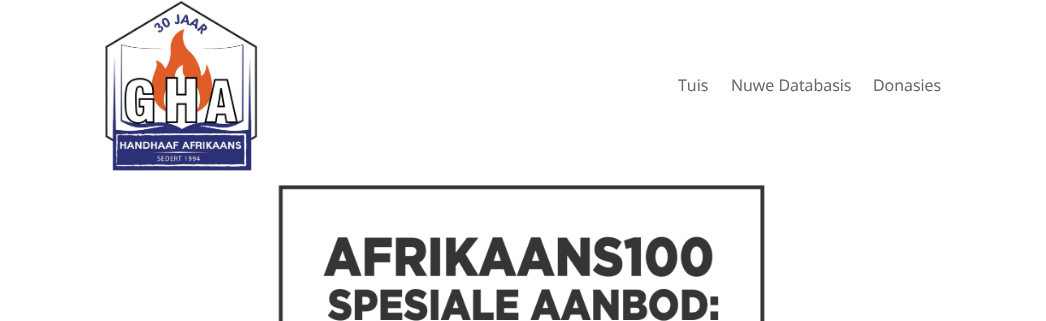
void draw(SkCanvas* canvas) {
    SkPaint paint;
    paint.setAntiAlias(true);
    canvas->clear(0xFFFFFFFF);
    canvas->drawImageRect(SkImages::DeferredFromEncodedData(SkData::MakeFromFileName("img1.png")), SkRect::MakeXYWH(105, 0, 153, 171), SkSamplingOptions());
    SkFont font1(fontMgr->matchFamilyStyle("Open Sans", SkFontStyle::Normal()), 16);
    font1.setSubpixel(true);
    paint.setColor(0xFF666666);
    canvas->drawString("Tuis", 678, 91, font1, paint);
    canvas->drawString("Nuwe Databasis", 731, 91, font1, paint);
    canvas->drawString("Donasies", 873, 91, font1, paint);
    canvas->drawImageRect(SkImages::DeferredFromEncodedData(SkData::MakeFromFileName("img2.png")), SkRect::MakeXYWH(278, 185, 487, 136), SkSamplingOptions());
}
